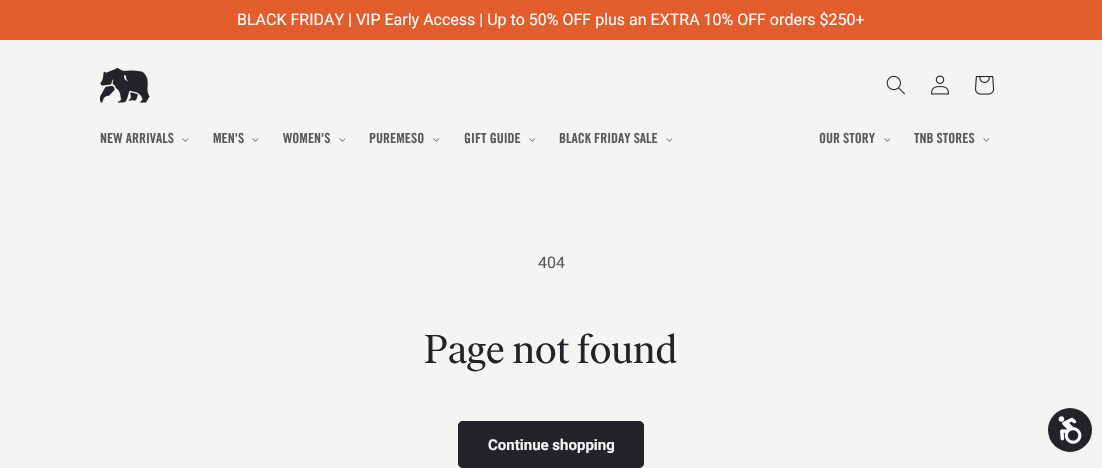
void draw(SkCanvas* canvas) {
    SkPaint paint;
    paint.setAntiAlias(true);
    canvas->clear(0xFFF6F4F2);
    paint.setColor(0xFFE35C2C);
    canvas->drawRect(SkRect::MakeXYWH(0, 0, 1102, 40), paint);
    SkFont font1(fontMgr->matchFamilyStyle("Roboto", SkFontStyle::Normal()), 16);
    font1.setSubpixel(true);
    paint.setColor(0xFFFFFFFF);
    canvas->drawString("BLACK FRIDAY | VIP Early Access | Up to 50% OFF plus an EXTRA 10% OFF orders $250+", 237, 25, font1, paint);
    canvas->drawImageRect(SkImages::DeferredFromEncodedData(SkData::MakeFromFileName("img1.png")), SkRect::MakeXYWH(100, 68, 50, 35), SkSamplingOptions());
    canvas->drawImageRect(SkImages::DeferredFromEncodedData(SkData::MakeFromFileName("img2.png")), SkRect::MakeXYWH(886, 75, 19, 20), SkSamplingOptions());
    canvas->drawImageRect(SkImages::DeferredFromEncodedData(SkData::MakeFromFileName("img3.png")), SkRect::MakeXYWH(931, 75, 18, 20), SkSamplingOptions());
    canvas->drawImageRect(SkImages::DeferredFromEncodedData(SkData::MakeFromFileName("img4.png")), SkRect::MakeXYWH(975, 76, 20, 19), SkSamplingOptions());
    SkFont font2(fontMgr->matchFamilyStyle("Trade Gothic", SkFontStyle::Bold()), 14);
    font2.setSubpixel(true);
    paint.setColor(0xFF57585C);
    canvas->drawString("NEW ARRIVALS", 100, 143, font2, paint);
    canvas->drawImageRect(SkImages::DeferredFromEncodedData(SkData::MakeFromFileName("img5.png")), SkRect::MakeXYWH(182, 138, 7, 4), SkSamplingOptions());
    canvas->drawString("MEN'S", 213, 143, font2, paint);
    canvas->drawImageRect(SkImages::DeferredFromEncodedData(SkData::MakeFromFileName("img5.png")), SkRect::MakeXYWH(252, 138, 7, 4), SkSamplingOptions());
    canvas->drawString("WOMEN'S", 283, 143, font2, paint);
    canvas->drawImageRect(SkImages::DeferredFromEncodedData(SkData::MakeFromFileName("img6.png")), SkRect::MakeXYWH(339, 138, 6, 4), SkSamplingOptions());
    canvas->drawString("PUREMESO", 369, 143, font2, paint);
    canvas->drawImageRect(SkImages::DeferredFromEncodedData(SkData::MakeFromFileName("img5.png")), SkRect::MakeXYWH(433, 138, 7, 4), SkSamplingOptions());
    canvas->drawString("GIFT GUIDE", 464, 143, font2, paint);
    canvas->drawImageRect(SkImages::DeferredFromEncodedData(SkData::MakeFromFileName("img6.png")), SkRect::MakeXYWH(529, 138, 6, 4), SkSamplingOptions());
    canvas->drawString("BLACK FRIDAY SALE", 559, 143, font2, paint);
    canvas->drawImageRect(SkImages::DeferredFromEncodedData(SkData::MakeFromFileName("img5.png")), SkRect::MakeXYWH(666, 138, 7, 4), SkSamplingOptions());
    canvas->drawString("OUR STORY", 819, 143, font2, paint);
    canvas->drawImageRect(SkImages::DeferredFromEncodedData(SkData::MakeFromFileName("img6.png")), SkRect::MakeXYWH(884, 138, 6, 4), SkSamplingOptions());
    canvas->drawString("TNB STORES", 914, 143, font2, paint);
    canvas->drawImageRect(SkImages::DeferredFromEncodedData(SkData::MakeFromFileName("img5.png")), SkRect::MakeXYWH(983, 138, 7, 4), SkSamplingOptions());
    canvas->drawString("404", 538, 268, font1, paint);
    SkFont font3(fontMgr->matchFamilyStyle("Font", SkFontStyle::Normal()), 40);
    font3.setSubpixel(true);
    paint.setColor(0xFF22242A);
    canvas->drawString("Page not found", 424, 363, font3, paint);
    canvas->drawRoundRect(SkRect::MakeXYWH(458, 421, 186, 47), 5, 5, paint);
    paint.setStyle(SkPaint::kStroke_Style);
    paint.setStrokeWidth(1);
    canvas->drawRoundRect(SkRect::MakeXYWH(458.5f, 421.5f, 185, 46), 4.5f, 4.5f, paint);
    SkFont font4(fontMgr->matchFamilyStyle("Roboto", SkFontStyle::Bold()), 15);
    font4.setSubpixel(true);
    paint.setStyle(SkPaint::kFill_Style);
    paint.setColor(0xFFF6F4F2);
    canvas->drawString("Continue shopping", 488, 450, font4, paint);
    paint.setColor(0xFF22242A);
    canvas->drawCircle(1070, 430, 22, paint);
    canvas->drawImageRect(SkImages::DeferredFromEncodedData(SkData::MakeFromFileName("img7.png")), SkRect::MakeXYWH(1058, 416, 24, 28), SkSamplingOptions());
}
